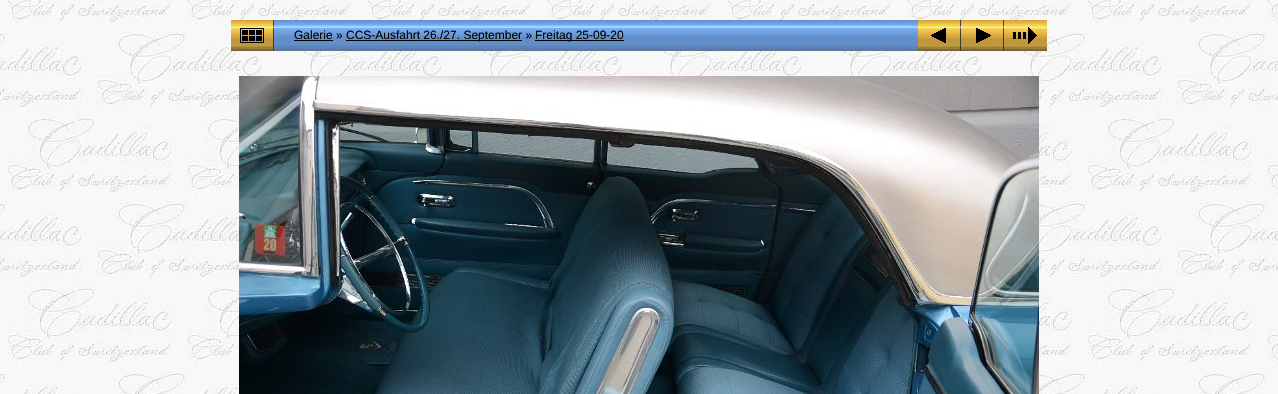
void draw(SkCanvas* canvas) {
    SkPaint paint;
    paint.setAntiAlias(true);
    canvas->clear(0xFFFFFFFF);
    canvas->drawImageRect(SkImages::DeferredFromEncodedData(SkData::MakeFromFileName("img1.png")), SkRect::MakeXYWH(0, 0, 1278, 394), SkSamplingOptions());
    canvas->drawImageRect(SkImages::DeferredFromEncodedData(SkData::MakeFromFileName("img2.png")), SkRect::MakeXYWH(231, 20, 43, 31), SkSamplingOptions());
    canvas->drawImageRect(SkImages::DeferredFromEncodedData(SkData::MakeFromFileName("img3.png")), SkRect::MakeXYWH(274, 20, 20, 31), SkSamplingOptions());
    canvas->drawImageRect(SkImages::DeferredFromEncodedData(SkData::MakeFromFileName("img4.png")), SkRect::MakeXYWH(294, 20, 604, 31), SkSamplingOptions());
    SkFont font1(fontMgr->matchFamilyStyle("Liberation Sans", SkFontStyle::Normal()), 12);
    font1.setSubpixel(true);
    paint.setColor(0xFF000000);
    canvas->drawString("Galerie »", 294, 39, font1, paint);
    canvas->drawRect(SkRect::MakeXYWH(294, 40, 39, 1), paint);
    canvas->drawRect(SkRect::MakeXYWH(346, 40, 176, 1), paint);
    canvas->drawString("CCS-Ausfahrt 26./27. September »", 346, 39, font1, paint);
    canvas->drawRect(SkRect::MakeXYWH(535, 40, 89, 1), paint);
    canvas->drawString("Freitag 25-09-20", 535, 39, font1, paint);
    canvas->drawImageRect(SkImages::DeferredFromEncodedData(SkData::MakeFromFileName("img3.png")), SkRect::MakeXYWH(898, 20, 20, 31), SkSamplingOptions());
    canvas->drawImageRect(SkImages::DeferredFromEncodedData(SkData::MakeFromFileName("img5.png")), SkRect::MakeXYWH(918, 20, 43, 31), SkSamplingOptions());
    canvas->drawImageRect(SkImages::DeferredFromEncodedData(SkData::MakeFromFileName("img6.png")), SkRect::MakeXYWH(961, 20, 43, 31), SkSamplingOptions());
    canvas->drawImageRect(SkImages::DeferredFromEncodedData(SkData::MakeFromFileName("img7.png")), SkRect::MakeXYWH(1004, 20, 43, 31), SkSamplingOptions());
    canvas->drawImageRect(SkImages::DeferredFromEncodedData(SkData::MakeFromFileName("img8.png")), SkRect::MakeXYWH(239, 76, 800, 318), SkSamplingOptions());
}
